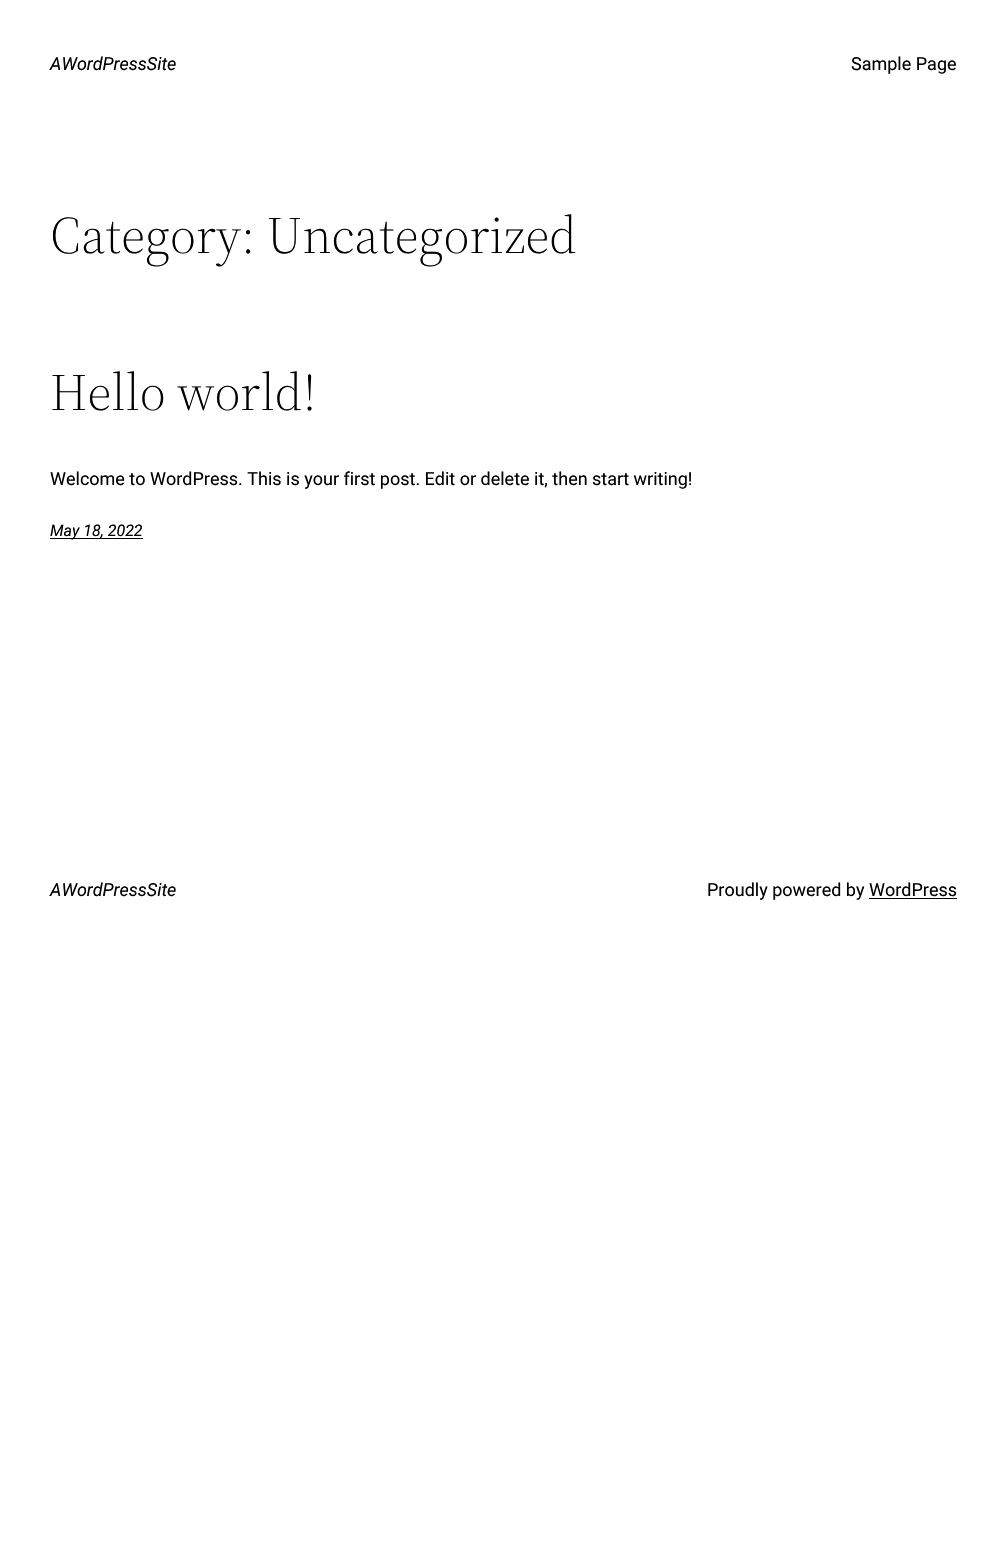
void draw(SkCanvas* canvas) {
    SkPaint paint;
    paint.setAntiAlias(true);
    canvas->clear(0xFFFFFFFF);
    SkFont font1(fontMgr->matchFamilyStyle("Roboto", SkFontStyle::Italic()), 18);
    font1.setSubpixel(true);
    paint.setColor(0xFF000000);
    canvas->drawString("AWordPressSite", 50, 70, font1, paint);
    SkFont font2(fontMgr->matchFamilyStyle("Roboto", SkFontStyle::Normal()), 18);
    font2.setSubpixel(true);
    canvas->drawString("Sample Page", 851, 70, font2, paint);
    SkFont font3(fontMgr->matchFamilyStyle("Source Serif 4", SkFontStyle(300, SkFontStyle::kNormal_Width, SkFontStyle::kUpright_Slant)), 52);
    font3.setSubpixel(true);
    canvas->drawString("Category: Uncategorized", 50, 253, font3, paint);
    canvas->drawString("Hello world!", 50, 410, font3, paint);
    canvas->drawString("Welcome to WordPress. This is your first post. Edit or delete it, then start writing!", 50, 485, font2, paint);
    canvas->drawRect(SkRect::MakeXYWH(50, 538, 93, 1), paint);
    SkFont font4(fontMgr->matchFamilyStyle("Roboto", SkFontStyle::Italic()), 16);
    font4.setSubpixel(true);
    canvas->drawString("May 18, 2022", 50, 536, font4, paint);
    canvas->drawString("AWordPressSite", 50, 896, font1, paint);
    canvas->drawString("Proudly powered by WordPress", 707, 896, font2, paint);
    canvas->drawRect(SkRect::MakeXYWH(869, 898, 88, 1), paint);
}
